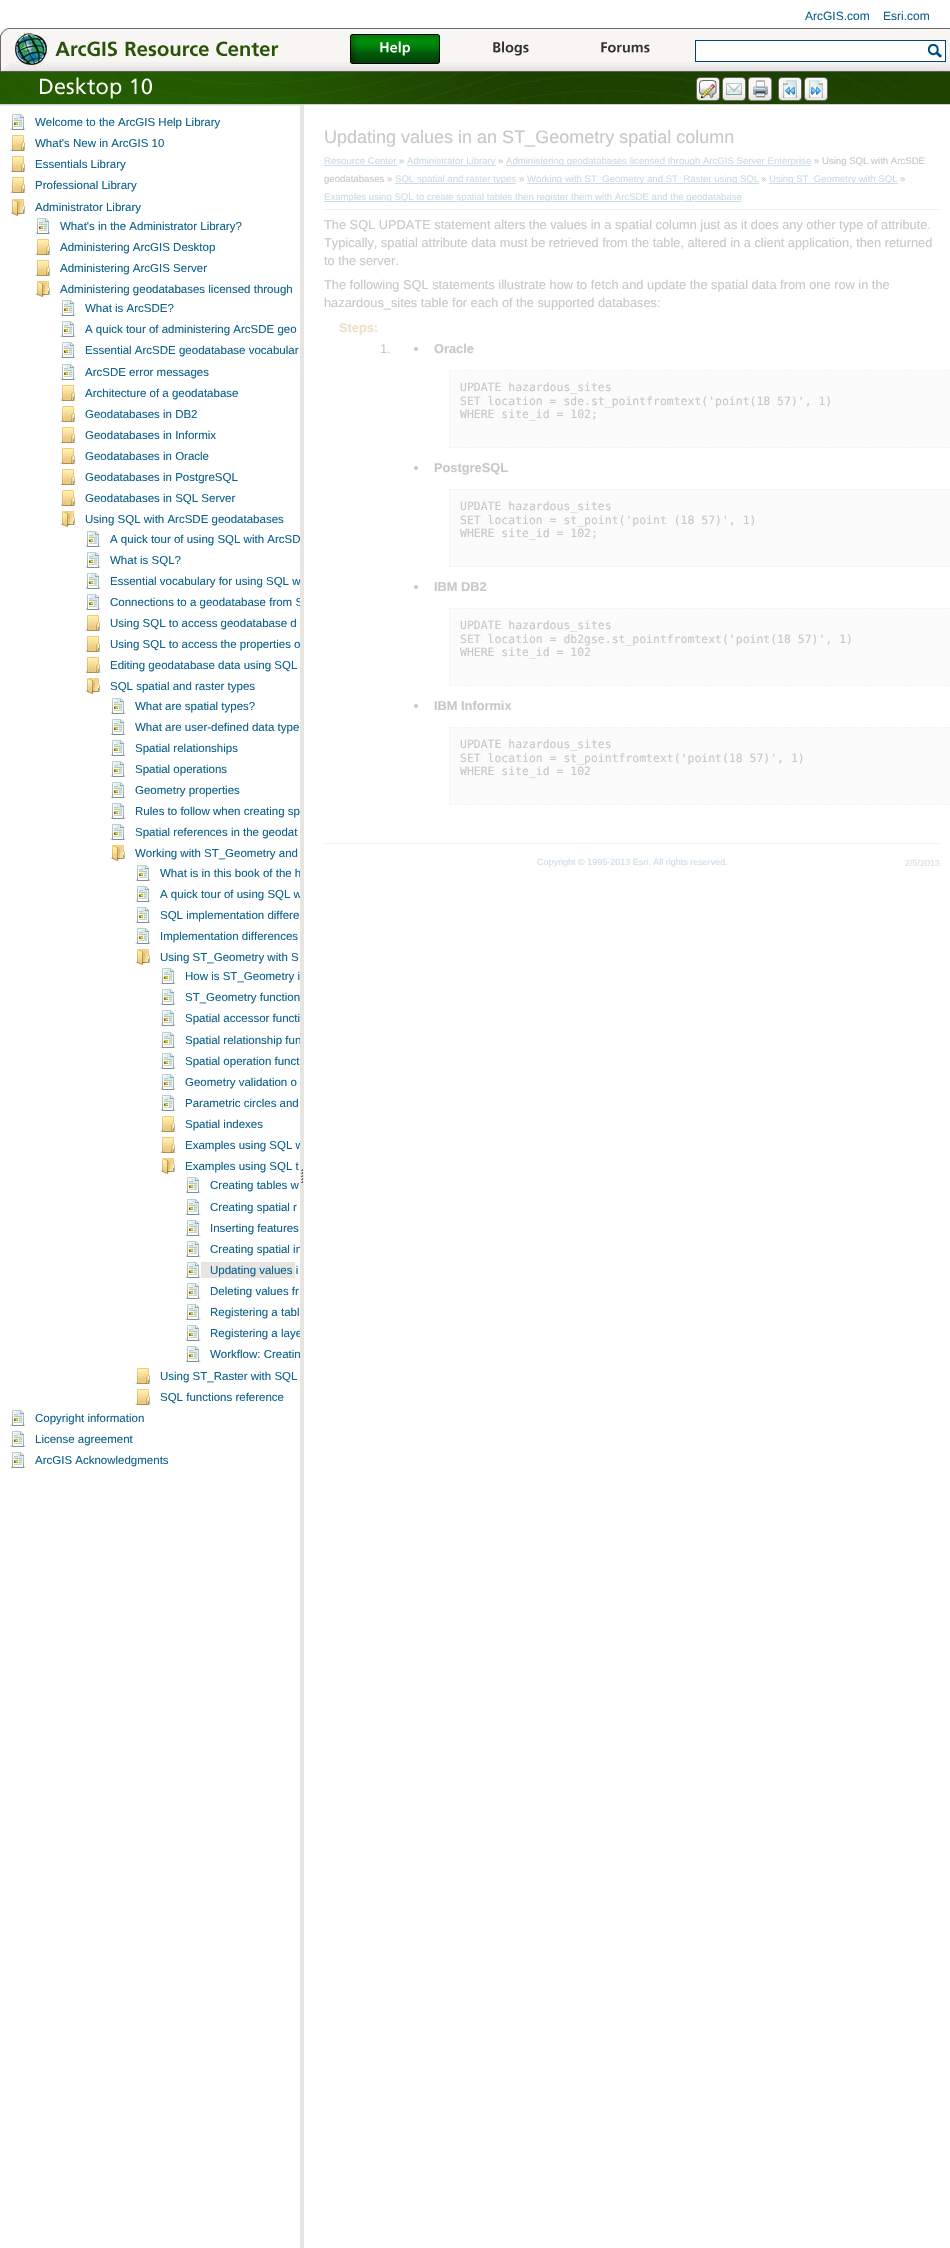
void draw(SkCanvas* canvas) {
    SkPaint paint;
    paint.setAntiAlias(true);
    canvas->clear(0xFFFFFFFF);
    canvas->drawImageRect(SkImages::DeferredFromEncodedData(SkData::MakeFromFileName("img1.png")), SkRect::MakeXYWH(52, 28, 898, 44), SkSamplingOptions());
    SkFont font1(fontMgr->matchFamilyStyle("Liberation Sans", SkFontStyle::Normal()), 12);
    font1.setSubpixel(true);
    paint.setColor(0xFF0C618D);
    canvas->drawString("ArcGIS.com", 805, 20, font1, paint);
    canvas->drawString("Esri.com", 883, 20, font1, paint);
    canvas->drawImageRect(SkImages::DeferredFromEncodedData(SkData::MakeFromFileName("img2.png")), SkRect::MakeXYWH(0, 28, 52, 44), SkSamplingOptions());
    canvas->drawImageRect(SkImages::DeferredFromEncodedData(SkData::MakeFromFileName("img3.png")), SkRect::MakeXYWH(55, 41, 63, 16), SkSamplingOptions());
    canvas->drawImageRect(SkImages::DeferredFromEncodedData(SkData::MakeFromFileName("img4.png")), SkRect::MakeXYWH(125, 41, 84, 16), SkSamplingOptions());
    canvas->drawImageRect(SkImages::DeferredFromEncodedData(SkData::MakeFromFileName("img5.png")), SkRect::MakeXYWH(216, 41, 63, 16), SkSamplingOptions());
    canvas->drawImageRect(SkImages::DeferredFromEncodedData(SkData::MakeFromFileName("img6.png")), SkRect::MakeXYWH(350, 34, 90, 30), SkSamplingOptions());
    canvas->drawImageRect(SkImages::DeferredFromEncodedData(SkData::MakeFromFileName("img7.png")), SkRect::MakeXYWH(380, 41, 31, 15), SkSamplingOptions());
    canvas->drawImageRect(SkImages::DeferredFromEncodedData(SkData::MakeFromFileName("img8.png")), SkRect::MakeXYWH(493, 41, 36, 15), SkSamplingOptions());
    canvas->drawImageRect(SkImages::DeferredFromEncodedData(SkData::MakeFromFileName("img9.png")), SkRect::MakeXYWH(601, 42, 49, 11), SkSamplingOptions());
    canvas->drawImageRect(SkImages::DeferredFromEncodedData(SkData::MakeFromFileName("img10.png")), SkRect::MakeXYWH(695, 36, 251, 30), SkSamplingOptions());
    canvas->drawImageRect(SkImages::DeferredFromEncodedData(SkData::MakeFromFileName("img11.png")), SkRect::MakeXYWH(0, 72, 950, 32), SkSamplingOptions());
    canvas->drawImageRect(SkImages::DeferredFromEncodedData(SkData::MakeFromFileName("img12.png")), SkRect::MakeXYWH(696, 77, 24, 24), SkSamplingOptions());
    canvas->drawImageRect(SkImages::DeferredFromEncodedData(SkData::MakeFromFileName("img13.png")), SkRect::MakeXYWH(722, 77, 24, 24), SkSamplingOptions());
    canvas->drawImageRect(SkImages::DeferredFromEncodedData(SkData::MakeFromFileName("img14.png")), SkRect::MakeXYWH(748, 77, 24, 24), SkSamplingOptions());
    canvas->drawImageRect(SkImages::DeferredFromEncodedData(SkData::MakeFromFileName("img15.png")), SkRect::MakeXYWH(778, 77, 24, 24), SkSamplingOptions());
    canvas->drawImageRect(SkImages::DeferredFromEncodedData(SkData::MakeFromFileName("img16.png")), SkRect::MakeXYWH(804, 77, 24, 24), SkSamplingOptions());
    paint.setColor(0xFFCFCFCF);
    canvas->drawRect(SkRect::MakeXYWH(0, 104, 950, 1), paint);
    paint.setColor(0xFFDFF0F8);
    canvas->drawRect(SkRect::MakeXYWH(0, 105, 300, 1), paint);
    canvas->drawImageRect(SkImages::DeferredFromEncodedData(SkData::MakeFromFileName("img17.png")), SkRect::MakeXYWH(10, 114, 16, 16), SkSamplingOptions());
    SkFont font2(fontMgr->matchFamilyStyle("Liberation Sans", SkFontStyle::Normal()), 11.5f);
    font2.setSubpixel(true);
    paint.setColor(0xFF0C618D);
    canvas->drawString("Welcome to the ArcGIS Help Library", 35, 126, font2, paint);
    canvas->drawImageRect(SkImages::DeferredFromEncodedData(SkData::MakeFromFileName("img18.png")), SkRect::MakeXYWH(10, 135, 16, 16), SkSamplingOptions());
    canvas->drawString("What's New in ArcGIS 10", 35, 147, font2, paint);
    canvas->drawImageRect(SkImages::DeferredFromEncodedData(SkData::MakeFromFileName("img18.png")), SkRect::MakeXYWH(10, 156, 16, 16), SkSamplingOptions());
    canvas->drawString("Essentials Library", 35, 168, font2, paint);
    canvas->drawImageRect(SkImages::DeferredFromEncodedData(SkData::MakeFromFileName("img18.png")), SkRect::MakeXYWH(10, 177, 16, 16), SkSamplingOptions());
    canvas->drawString("Professional Library", 35, 189, font2, paint);
    canvas->drawImageRect(SkImages::DeferredFromEncodedData(SkData::MakeFromFileName("img19.png")), SkRect::MakeXYWH(10, 199, 16, 17), SkSamplingOptions());
    canvas->drawString("Administrator Library", 35, 211, font2, paint);
    canvas->drawImageRect(SkImages::DeferredFromEncodedData(SkData::MakeFromFileName("img17.png")), SkRect::MakeXYWH(35, 218, 16, 16), SkSamplingOptions());
    canvas->drawString("What's in the Administrator Library?", 60, 230, font2, paint);
    canvas->drawImageRect(SkImages::DeferredFromEncodedData(SkData::MakeFromFileName("img18.png")), SkRect::MakeXYWH(35, 239, 16, 16), SkSamplingOptions());
    canvas->drawString("Administering ArcGIS Desktop", 60, 251, font2, paint);
    canvas->drawImageRect(SkImages::DeferredFromEncodedData(SkData::MakeFromFileName("img18.png")), SkRect::MakeXYWH(35, 260, 16, 16), SkSamplingOptions());
    canvas->drawString("Administering ArcGIS Server", 60, 272, font2, paint);
    canvas->drawImageRect(SkImages::DeferredFromEncodedData(SkData::MakeFromFileName("img20.png")), SkRect::MakeXYWH(35, 281, 16, 16), SkSamplingOptions());
    canvas->drawString("Administering geodatabases licensed through", 60, 293, font2, paint);
    canvas->drawImageRect(SkImages::DeferredFromEncodedData(SkData::MakeFromFileName("img17.png")), SkRect::MakeXYWH(60, 300, 16, 16), SkSamplingOptions());
    canvas->drawString("What is ArcSDE?", 85, 312, font2, paint);
    canvas->drawImageRect(SkImages::DeferredFromEncodedData(SkData::MakeFromFileName("img17.png")), SkRect::MakeXYWH(60, 321, 16, 16), SkSamplingOptions());
    canvas->drawString("A quick tour of administering ArcSDE geo", 85, 333, font2, paint);
    canvas->drawImageRect(SkImages::DeferredFromEncodedData(SkData::MakeFromFileName("img17.png")), SkRect::MakeXYWH(60, 342, 16, 16), SkSamplingOptions());
    canvas->drawString("Essential ArcSDE geodatabase vocabular", 85, 354, font2, paint);
    canvas->drawImageRect(SkImages::DeferredFromEncodedData(SkData::MakeFromFileName("img17.png")), SkRect::MakeXYWH(60, 364, 16, 16), SkSamplingOptions());
    canvas->drawString("ArcSDE error messages", 85, 376, font2, paint);
    canvas->drawImageRect(SkImages::DeferredFromEncodedData(SkData::MakeFromFileName("img18.png")), SkRect::MakeXYWH(60, 385, 16, 16), SkSamplingOptions());
    canvas->drawString("Architecture of a geodatabase", 85, 397, font2, paint);
    canvas->drawImageRect(SkImages::DeferredFromEncodedData(SkData::MakeFromFileName("img18.png")), SkRect::MakeXYWH(60, 406, 16, 16), SkSamplingOptions());
    canvas->drawString("Geodatabases in DB2", 85, 418, font2, paint);
    canvas->drawImageRect(SkImages::DeferredFromEncodedData(SkData::MakeFromFileName("img18.png")), SkRect::MakeXYWH(60, 427, 16, 16), SkSamplingOptions());
    canvas->drawString("Geodatabases in Informix", 85, 439, font2, paint);
    canvas->drawImageRect(SkImages::DeferredFromEncodedData(SkData::MakeFromFileName("img18.png")), SkRect::MakeXYWH(60, 448, 16, 16), SkSamplingOptions());
    canvas->drawString("Geodatabases in Oracle", 85, 460, font2, paint);
    canvas->drawImageRect(SkImages::DeferredFromEncodedData(SkData::MakeFromFileName("img18.png")), SkRect::MakeXYWH(60, 469, 16, 16), SkSamplingOptions());
    canvas->drawString("Geodatabases in PostgreSQL", 85, 481, font2, paint);
    canvas->drawImageRect(SkImages::DeferredFromEncodedData(SkData::MakeFromFileName("img18.png")), SkRect::MakeXYWH(60, 490, 16, 16), SkSamplingOptions());
    canvas->drawString("Geodatabases in SQL Server", 85, 502, font2, paint);
    canvas->drawImageRect(SkImages::DeferredFromEncodedData(SkData::MakeFromFileName("img20.png")), SkRect::MakeXYWH(60, 511, 16, 16), SkSamplingOptions());
    canvas->drawString("Using SQL with ArcSDE geodatabases", 85, 523, font2, paint);
    canvas->drawImageRect(SkImages::DeferredFromEncodedData(SkData::MakeFromFileName("img17.png")), SkRect::MakeXYWH(85, 531, 16, 16), SkSamplingOptions());
    canvas->drawString("A quick tour of using SQL with ArcSD", 110, 543, font2, paint);
    canvas->drawImageRect(SkImages::DeferredFromEncodedData(SkData::MakeFromFileName("img17.png")), SkRect::MakeXYWH(85, 552, 16, 16), SkSamplingOptions());
    canvas->drawString("What is SQL?", 110, 564, font2, paint);
    canvas->drawImageRect(SkImages::DeferredFromEncodedData(SkData::MakeFromFileName("img17.png")), SkRect::MakeXYWH(85, 573, 16, 16), SkSamplingOptions());
    canvas->drawString("Essential vocabulary for using SQL w", 110, 585, font2, paint);
    canvas->drawImageRect(SkImages::DeferredFromEncodedData(SkData::MakeFromFileName("img17.png")), SkRect::MakeXYWH(85, 594, 16, 16), SkSamplingOptions());
    canvas->drawString("Connections to a geodatabase from S", 110, 606, font2, paint);
    canvas->drawImageRect(SkImages::DeferredFromEncodedData(SkData::MakeFromFileName("img18.png")), SkRect::MakeXYWH(85, 615, 16, 16), SkSamplingOptions());
    canvas->drawString("Using SQL to access geodatabase d", 110, 627, font2, paint);
    canvas->drawImageRect(SkImages::DeferredFromEncodedData(SkData::MakeFromFileName("img18.png")), SkRect::MakeXYWH(85, 636, 16, 16), SkSamplingOptions());
    canvas->drawString("Using SQL to access the properties o", 110, 648, font2, paint);
    canvas->drawImageRect(SkImages::DeferredFromEncodedData(SkData::MakeFromFileName("img18.png")), SkRect::MakeXYWH(85, 657, 16, 16), SkSamplingOptions());
    canvas->drawString("Editing geodatabase data using SQL", 110, 669, font2, paint);
    canvas->drawImageRect(SkImages::DeferredFromEncodedData(SkData::MakeFromFileName("img20.png")), SkRect::MakeXYWH(85, 678, 16, 16), SkSamplingOptions());
    canvas->drawString("SQL spatial and raster types", 110, 690, font2, paint);
    canvas->drawImageRect(SkImages::DeferredFromEncodedData(SkData::MakeFromFileName("img17.png")), SkRect::MakeXYWH(110, 698, 16, 16), SkSamplingOptions());
    canvas->drawString("What are spatial types?", 135, 710, font2, paint);
    canvas->drawImageRect(SkImages::DeferredFromEncodedData(SkData::MakeFromFileName("img17.png")), SkRect::MakeXYWH(110, 719, 16, 16), SkSamplingOptions());
    canvas->drawString("What are user-defined data type", 135, 731, font2, paint);
    canvas->drawImageRect(SkImages::DeferredFromEncodedData(SkData::MakeFromFileName("img17.png")), SkRect::MakeXYWH(110, 740, 16, 16), SkSamplingOptions());
    canvas->drawString("Spatial relationships", 135, 752, font2, paint);
    canvas->drawImageRect(SkImages::DeferredFromEncodedData(SkData::MakeFromFileName("img17.png")), SkRect::MakeXYWH(110, 761, 16, 16), SkSamplingOptions());
    canvas->drawString("Spatial operations", 135, 773, font2, paint);
    canvas->drawImageRect(SkImages::DeferredFromEncodedData(SkData::MakeFromFileName("img17.png")), SkRect::MakeXYWH(110, 782, 16, 16), SkSamplingOptions());
    canvas->drawString("Geometry properties", 135, 794, font2, paint);
    canvas->drawImageRect(SkImages::DeferredFromEncodedData(SkData::MakeFromFileName("img17.png")), SkRect::MakeXYWH(110, 803, 16, 16), SkSamplingOptions());
    canvas->drawString("Rules to follow when creating sp", 135, 815, font2, paint);
    canvas->drawImageRect(SkImages::DeferredFromEncodedData(SkData::MakeFromFileName("img17.png")), SkRect::MakeXYWH(110, 824, 16, 16), SkSamplingOptions());
    canvas->drawString("Spatial references in the geodat", 135, 836, font2, paint);
    canvas->drawImageRect(SkImages::DeferredFromEncodedData(SkData::MakeFromFileName("img20.png")), SkRect::MakeXYWH(110, 845, 16, 16), SkSamplingOptions());
    canvas->drawString("Working with ST_Geometry and", 135, 857, font2, paint);
    canvas->drawImageRect(SkImages::DeferredFromEncodedData(SkData::MakeFromFileName("img17.png")), SkRect::MakeXYWH(135, 865, 16, 16), SkSamplingOptions());
    canvas->drawString("What is in this book of the h", 160, 877, font2, paint);
    canvas->drawImageRect(SkImages::DeferredFromEncodedData(SkData::MakeFromFileName("img17.png")), SkRect::MakeXYWH(135, 886, 16, 16), SkSamplingOptions());
    canvas->drawString("A quick tour of using SQL w", 160, 898, font2, paint);
    canvas->drawImageRect(SkImages::DeferredFromEncodedData(SkData::MakeFromFileName("img17.png")), SkRect::MakeXYWH(135, 907, 16, 16), SkSamplingOptions());
    canvas->drawString("SQL implementation differe", 160, 919, font2, paint);
    canvas->drawImageRect(SkImages::DeferredFromEncodedData(SkData::MakeFromFileName("img17.png")), SkRect::MakeXYWH(135, 928, 16, 16), SkSamplingOptions());
    canvas->drawString("Implementation differences", 160, 940, font2, paint);
    canvas->drawImageRect(SkImages::DeferredFromEncodedData(SkData::MakeFromFileName("img20.png")), SkRect::MakeXYWH(135, 949, 16, 16), SkSamplingOptions());
    canvas->drawString("Using ST_Geometry with S", 160, 961, font2, paint);
    canvas->drawImageRect(SkImages::DeferredFromEncodedData(SkData::MakeFromFileName("img17.png")), SkRect::MakeXYWH(160, 968, 16, 16), SkSamplingOptions());
    canvas->drawString("How is ST_Geometry i", 185, 980, font2, paint);
    canvas->drawImageRect(SkImages::DeferredFromEncodedData(SkData::MakeFromFileName("img17.png")), SkRect::MakeXYWH(160, 989, 16, 16), SkSamplingOptions());
    canvas->drawString("ST_Geometry function", 185, 1001, font2, paint);
    canvas->drawImageRect(SkImages::DeferredFromEncodedData(SkData::MakeFromFileName("img17.png")), SkRect::MakeXYWH(160, 1010, 16, 16), SkSamplingOptions());
    canvas->drawString("Spatial accessor functi", 185, 1022, font2, paint);
    canvas->drawImageRect(SkImages::DeferredFromEncodedData(SkData::MakeFromFileName("img17.png")), SkRect::MakeXYWH(160, 1032, 16, 16), SkSamplingOptions());
    canvas->drawString("Spatial relationship fun", 185, 1044, font2, paint);
    canvas->drawImageRect(SkImages::DeferredFromEncodedData(SkData::MakeFromFileName("img17.png")), SkRect::MakeXYWH(160, 1053, 16, 16), SkSamplingOptions());
    canvas->drawString("Spatial operation funct", 185, 1065, font2, paint);
    canvas->drawImageRect(SkImages::DeferredFromEncodedData(SkData::MakeFromFileName("img17.png")), SkRect::MakeXYWH(160, 1074, 16, 16), SkSamplingOptions());
    canvas->drawString("Geometry validation o", 185, 1086, font2, paint);
    canvas->drawImageRect(SkImages::DeferredFromEncodedData(SkData::MakeFromFileName("img17.png")), SkRect::MakeXYWH(160, 1095, 16, 16), SkSamplingOptions());
    canvas->drawString("Parametric circles and", 185, 1107, font2, paint);
    canvas->drawImageRect(SkImages::DeferredFromEncodedData(SkData::MakeFromFileName("img18.png")), SkRect::MakeXYWH(160, 1116, 16, 16), SkSamplingOptions());
    canvas->drawString("Spatial indexes", 185, 1128, font2, paint);
    canvas->drawImageRect(SkImages::DeferredFromEncodedData(SkData::MakeFromFileName("img18.png")), SkRect::MakeXYWH(160, 1137, 16, 16), SkSamplingOptions());
    canvas->drawString("Examples using SQL w", 185, 1149, font2, paint);
    canvas->drawImageRect(SkImages::DeferredFromEncodedData(SkData::MakeFromFileName("img20.png")), SkRect::MakeXYWH(160, 1158, 16, 16), SkSamplingOptions());
    canvas->drawString("Examples using SQL t", 185, 1170, font2, paint);
    canvas->drawImageRect(SkImages::DeferredFromEncodedData(SkData::MakeFromFileName("img17.png")), SkRect::MakeXYWH(185, 1177, 16, 16), SkSamplingOptions());
    canvas->drawString("Creating tables w", 210, 1189, font2, paint);
    canvas->drawImageRect(SkImages::DeferredFromEncodedData(SkData::MakeFromFileName("img17.png")), SkRect::MakeXYWH(185, 1199, 16, 16), SkSamplingOptions());
    canvas->drawString("Creating spatial r", 210, 1211, font2, paint);
    canvas->drawImageRect(SkImages::DeferredFromEncodedData(SkData::MakeFromFileName("img17.png")), SkRect::MakeXYWH(185, 1220, 16, 16), SkSamplingOptions());
    canvas->drawString("Inserting features", 210, 1232, font2, paint);
    canvas->drawImageRect(SkImages::DeferredFromEncodedData(SkData::MakeFromFileName("img17.png")), SkRect::MakeXYWH(185, 1241, 16, 16), SkSamplingOptions());
    canvas->drawString("Creating spatial in", 210, 1253, font2, paint);
    paint.setColor(0xFFE6E5E2);
    canvas->drawRect(SkRect::MakeXYWH(201, 1262, 94, 16), paint);
    canvas->drawImageRect(SkImages::DeferredFromEncodedData(SkData::MakeFromFileName("img17.png")), SkRect::MakeXYWH(185, 1262, 16, 16), SkSamplingOptions());
    paint.setColor(0xFF0C618D);
    canvas->drawString("Updating values i", 210, 1274, font2, paint);
    canvas->drawImageRect(SkImages::DeferredFromEncodedData(SkData::MakeFromFileName("img17.png")), SkRect::MakeXYWH(185, 1283, 16, 16), SkSamplingOptions());
    canvas->drawString("Deleting values fr", 210, 1295, font2, paint);
    canvas->drawImageRect(SkImages::DeferredFromEncodedData(SkData::MakeFromFileName("img17.png")), SkRect::MakeXYWH(185, 1304, 16, 16), SkSamplingOptions());
    canvas->drawString("Registering a tabl", 210, 1316, font2, paint);
    canvas->drawImageRect(SkImages::DeferredFromEncodedData(SkData::MakeFromFileName("img17.png")), SkRect::MakeXYWH(185, 1325, 16, 16), SkSamplingOptions());
    canvas->drawString("Registering a laye", 210, 1337, font2, paint);
    canvas->drawImageRect(SkImages::DeferredFromEncodedData(SkData::MakeFromFileName("img17.png")), SkRect::MakeXYWH(185, 1346, 16, 16), SkSamplingOptions());
    canvas->drawString("Workflow: Creatin", 210, 1358, font2, paint);
    canvas->drawImageRect(SkImages::DeferredFromEncodedData(SkData::MakeFromFileName("img18.png")), SkRect::MakeXYWH(135, 1368, 16, 16), SkSamplingOptions());
    canvas->drawString("Using ST_Raster with SQL", 160, 1380, font2, paint);
    canvas->drawImageRect(SkImages::DeferredFromEncodedData(SkData::MakeFromFileName("img18.png")), SkRect::MakeXYWH(135, 1389, 16, 16), SkSamplingOptions());
    canvas->drawString("SQL functions reference", 160, 1401, font2, paint);
    canvas->drawImageRect(SkImages::DeferredFromEncodedData(SkData::MakeFromFileName("img17.png")), SkRect::MakeXYWH(10, 1410, 16, 16), SkSamplingOptions());
    canvas->drawString("Copyright information", 35, 1422, font2, paint);
    canvas->drawImageRect(SkImages::DeferredFromEncodedData(SkData::MakeFromFileName("img17.png")), SkRect::MakeXYWH(10, 1431, 16, 16), SkSamplingOptions());
    canvas->drawString("License agreement", 35, 1443, font2, paint);
    canvas->drawImageRect(SkImages::DeferredFromEncodedData(SkData::MakeFromFileName("img17.png")), SkRect::MakeXYWH(10, 1452, 16, 16), SkSamplingOptions());
    canvas->drawString("ArcGIS Acknowledgments", 35, 1464, font2, paint);
    paint.setColor(0xFFE6E5E2);
    canvas->drawRect(SkRect::MakeXYWH(300, 105, 4, 2143), paint);
    canvas->drawImageRect(SkImages::DeferredFromEncodedData(SkData::MakeFromFileName("img21.png")), SkRect::MakeXYWH(301, 1169, 2, 14), SkSamplingOptions());
    paint.setColor(0xFFF2F2F0);
    canvas->drawRect(SkRect::MakeXYWH(324, 209, 616, 1), paint);
    SkFont font3(fontMgr->matchFamilyStyle("Liberation Sans", SkFontStyle::Normal()), 18);
    font3.setSubpixel(true);
    paint.setColor(0xFFC8C8C8);
    canvas->drawString("Updating values in an ST_Geometry spatial column", 324, 143, font3, paint);
    SkFont font4(fontMgr->matchFamilyStyle("Liberation Sans", SkFontStyle::Normal()), 9.6f);
    font4.setSubpixel(true);
    paint.setColor(0xFFCBDDE6);
    canvas->drawString("Resource Center", 324, 164, font4, paint);
    canvas->drawRect(SkRect::MakeXYWH(324, 165, 73, 1), paint);
    paint.setColor(0xFFC8C8C8);
    canvas->drawString("»", 399, 164, font4, paint);
    paint.setColor(0xFFCBDDE6);
    canvas->drawRect(SkRect::MakeXYWH(407, 165, 89, 1), paint);
    canvas->drawString("Administrator Library", 407, 164, font4, paint);
    paint.setColor(0xFFC8C8C8);
    canvas->drawString("»", 498, 164, font4, paint);
    paint.setColor(0xFFCBDDE6);
    canvas->drawRect(SkRect::MakeXYWH(506, 165, 305, 1), paint);
    canvas->drawString("Administering geodatabases licensed through ArcGIS Server Enterprise", 506, 164, font4, paint);
    paint.setColor(0xFFC8C8C8);
    canvas->drawString("» Using SQL with ArcSDE", 814, 164, font4, paint);
    canvas->drawString("geodatabases »", 324, 182, font4, paint);
    paint.setColor(0xFFCBDDE6);
    canvas->drawRect(SkRect::MakeXYWH(395, 183, 121, 1), paint);
    canvas->drawString("SQL spatial and raster types", 395, 182, font4, paint);
    paint.setColor(0xFFC8C8C8);
    canvas->drawString("»", 519, 182, font4, paint);
    paint.setColor(0xFFCBDDE6);
    canvas->drawRect(SkRect::MakeXYWH(527, 183, 232, 1), paint);
    canvas->drawString("Working with ST_Geometry and ST_Raster using SQL", 527, 182, font4, paint);
    paint.setColor(0xFFC8C8C8);
    canvas->drawString("»", 761, 182, font4, paint);
    paint.setColor(0xFFCBDDE6);
    canvas->drawRect(SkRect::MakeXYWH(769, 183, 129, 1), paint);
    canvas->drawString("Using ST_Geometry with SQL", 769, 182, font4, paint);
    paint.setColor(0xFFC8C8C8);
    canvas->drawString("»", 900, 182, font4, paint);
    paint.setColor(0xFFCBDDE6);
    canvas->drawRect(SkRect::MakeXYWH(324, 201, 418, 1), paint);
    canvas->drawString("Examples using SQL to create spatial tables then register them with ArcSDE and the geodatabase", 324, 200, font4, paint);
    SkFont font5(fontMgr->matchFamilyStyle("Liberation Sans", SkFontStyle::Normal()), 12.8f);
    font5.setSubpixel(true);
    paint.setColor(0xFFC8C8C8);
    canvas->drawString("The SQL UPDATE statement alters the values in a spatial column just as it does any other type of attribute.", 324, 229, font5, paint);
    canvas->drawString("Typically, spatial attribute data must be retrieved from the table, altered in a client application, then returned", 324, 247, font5, paint);
    canvas->drawString("to the server.", 324, 265, font5, paint);
    canvas->drawString("The following SQL statements illustrate how to fetch and update the spatial data from one row in the", 324, 289, font5, paint);
    canvas->drawString("hazardous_sites table for each of the supported databases:", 324, 307, font5, paint);
    SkFont font6(fontMgr->matchFamilyStyle("Liberation Sans", SkFontStyle::Bold()), 12.8f);
    font6.setSubpixel(true);
    paint.setColor(0xFFEEE1CA);
    canvas->drawString("Steps:", 339, 332, font6, paint);
    paint.setColor(0xFFC8C8C8);
    canvas->drawString("1.", 380, 353, font5, paint);
    canvas->drawCircle(416, 349, 2, paint);
    canvas->drawString("Oracle", 434, 353, font6, paint);
    paint.setColor(0xFFFBFBFB);
    canvas->drawRect(SkRect::MakeXYWH(449, 370, 501, 78), paint);
    paint.setStyle(SkPaint::kStroke_Style);
    paint.setStrokeWidth(1);
    paint.setColor(0xFFF2F2F0);
    paint.setPathEffect(SkDashPathEffect::Make({{3, 2}}, 0));
    canvas->drawPath(SkPathBuilder().moveTo(449, 370.5f).lineTo(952, 370.5f).detach(), paint);
    paint.setPathEffect(nullptr);
    paint.setPathEffect(SkDashPathEffect::Make({{3, 2}}, 0));
    canvas->drawPath(SkPathBuilder().moveTo(449, 447.5f).lineTo(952, 447.5f).detach(), paint);
    paint.setPathEffect(nullptr);
    paint.setPathEffect(SkDashPathEffect::Make({{3, 2}}, 0));
    canvas->drawPath(SkPathBuilder().moveTo(449.5f, 370).lineTo(449.5f, 448).detach(), paint);
    paint.setPathEffect(nullptr);
    SkFont font7(fontMgr->matchFamilyStyle("DejaVu Sans Mono", SkFontStyle::Normal()), 11.45f);
    font7.setSubpixel(true);
    paint.setStyle(SkPaint::kFill_Style);
    paint.setColor(0xFFC8C8C8);
    canvas->drawString("UPDATE hazardous_sites", 460, 391, font7, paint);
    canvas->drawString("SET location = sde.st_pointfromtext('point(18 57)', 1)", 460, 405, font7, paint);
    canvas->drawString("WHERE site_id = 102;", 460, 418, font7, paint);
    canvas->drawCircle(416, 468, 2, paint);
    canvas->drawString("PostgreSQL", 434, 472, font6, paint);
    paint.setColor(0xFFFBFBFB);
    canvas->drawRect(SkRect::MakeXYWH(449, 489, 501, 78), paint);
    paint.setStyle(SkPaint::kStroke_Style);
    paint.setColor(0xFFF2F2F0);
    paint.setPathEffect(SkDashPathEffect::Make({{3, 2}}, 0));
    canvas->drawPath(SkPathBuilder().moveTo(449, 489.5f).lineTo(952, 489.5f).detach(), paint);
    paint.setPathEffect(nullptr);
    paint.setPathEffect(SkDashPathEffect::Make({{3, 2}}, 0));
    canvas->drawPath(SkPathBuilder().moveTo(449, 566.5f).lineTo(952, 566.5f).detach(), paint);
    paint.setPathEffect(nullptr);
    paint.setPathEffect(SkDashPathEffect::Make({{3, 2}}, 0));
    canvas->drawPath(SkPathBuilder().moveTo(449.5f, 489).lineTo(449.5f, 567).detach(), paint);
    paint.setPathEffect(nullptr);
    paint.setStyle(SkPaint::kFill_Style);
    paint.setColor(0xFFC8C8C8);
    canvas->drawString("UPDATE hazardous_sites", 460, 510, font7, paint);
    canvas->drawString("SET location = st_point('point (18 57)', 1)", 460, 524, font7, paint);
    canvas->drawString("WHERE site_id = 102;", 460, 537, font7, paint);
    canvas->drawCircle(416, 587, 2, paint);
    canvas->drawString("IBM DB2", 434, 591, font6, paint);
    paint.setColor(0xFFFBFBFB);
    canvas->drawRect(SkRect::MakeXYWH(449, 608, 501, 78), paint);
    paint.setStyle(SkPaint::kStroke_Style);
    paint.setColor(0xFFF2F2F0);
    paint.setPathEffect(SkDashPathEffect::Make({{3, 2}}, 0));
    canvas->drawPath(SkPathBuilder().moveTo(449, 608.5f).lineTo(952, 608.5f).detach(), paint);
    paint.setPathEffect(nullptr);
    paint.setPathEffect(SkDashPathEffect::Make({{3, 2}}, 0));
    canvas->drawPath(SkPathBuilder().moveTo(449, 685.5f).lineTo(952, 685.5f).detach(), paint);
    paint.setPathEffect(nullptr);
    paint.setPathEffect(SkDashPathEffect::Make({{3, 2}}, 0));
    canvas->drawPath(SkPathBuilder().moveTo(449.5f, 608).lineTo(449.5f, 686).detach(), paint);
    paint.setPathEffect(nullptr);
    paint.setStyle(SkPaint::kFill_Style);
    paint.setColor(0xFFC8C8C8);
    canvas->drawString("UPDATE hazardous_sites", 460, 629, font7, paint);
    canvas->drawString("SET location = db2gse.st_pointfromtext('point(18 57)', 1)", 460, 643, font7, paint);
    canvas->drawString("WHERE site_id = 102", 460, 656, font7, paint);
    canvas->drawCircle(416, 706, 2, paint);
    canvas->drawString("IBM Informix", 434, 710, font6, paint);
    paint.setColor(0xFFFBFBFB);
    canvas->drawRect(SkRect::MakeXYWH(449, 727, 501, 78), paint);
    paint.setStyle(SkPaint::kStroke_Style);
    paint.setColor(0xFFF2F2F0);
    paint.setPathEffect(SkDashPathEffect::Make({{3, 2}}, 0));
    canvas->drawPath(SkPathBuilder().moveTo(449, 727.5f).lineTo(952, 727.5f).detach(), paint);
    paint.setPathEffect(nullptr);
    paint.setPathEffect(SkDashPathEffect::Make({{3, 2}}, 0));
    canvas->drawPath(SkPathBuilder().moveTo(449, 804.5f).lineTo(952, 804.5f).detach(), paint);
    paint.setPathEffect(nullptr);
    paint.setPathEffect(SkDashPathEffect::Make({{3, 2}}, 0));
    canvas->drawPath(SkPathBuilder().moveTo(449.5f, 727).lineTo(449.5f, 805).detach(), paint);
    paint.setPathEffect(nullptr);
    paint.setStyle(SkPaint::kFill_Style);
    paint.setColor(0xFFC8C8C8);
    canvas->drawString("UPDATE hazardous_sites", 460, 748, font7, paint);
    canvas->drawString("SET location = st_pointfromtext('point(18 57)', 1)", 460, 762, font7, paint);
    canvas->drawString("WHERE site_id = 102", 460, 775, font7, paint);
    paint.setColor(0xFFF2F2F0);
    canvas->drawRect(SkRect::MakeXYWH(324, 843, 616, 1), paint);
    SkFont font8(fontMgr->matchFamilyStyle("Liberation Sans", SkFontStyle::Normal()), 9);
    font8.setSubpixel(true);
    paint.setColor(0xFFCBDDE6);
    canvas->drawString("Copyright © 1995-2013 Esri. All rights reserved.", 537, 865, font8, paint);
    paint.setColor(0xFFDEDEDE);
    canvas->drawString("2/5/2013", 905, 866, font8, paint);
}
